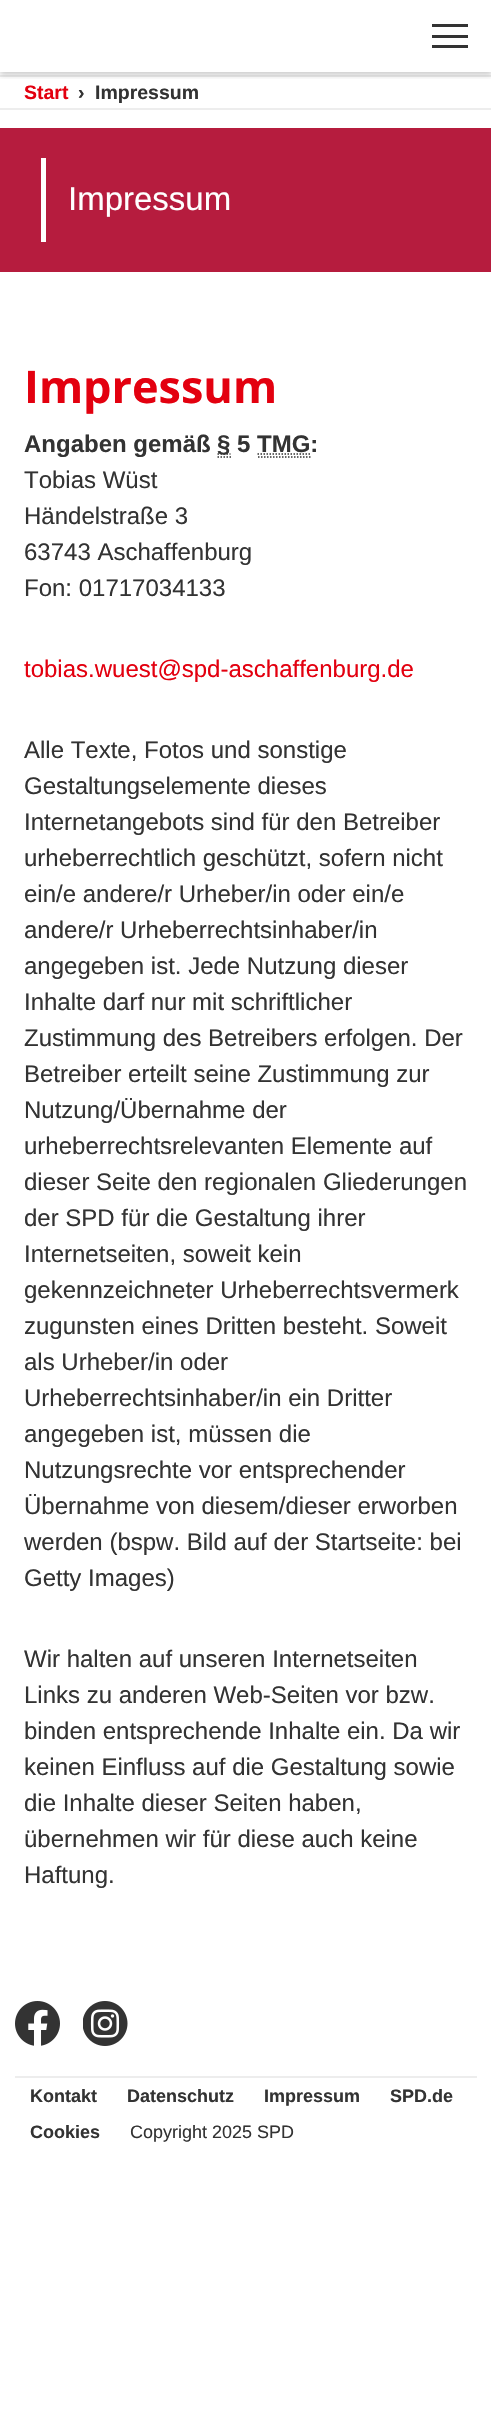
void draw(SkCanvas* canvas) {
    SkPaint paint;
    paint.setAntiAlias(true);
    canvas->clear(0xFFFFFFFF);
    paint.setColor(0xFFEDEDED);
    canvas->drawRect(SkRect::MakeXYWH(0, 75, 491, 2), paint);
    canvas->save();
    canvas->clipRect(SkRect::MakeXYWH(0, 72, 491, 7));
    paint.setColor(0x33000000);
    paint.setMaskFilter(SkMaskFilter::MakeBlur(kNormal_SkBlurStyle, 3));
    canvas->drawRect(SkRect::MakeXYWH(0, 3, 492, 72), paint);
    paint.setMaskFilter(nullptr);
    canvas->restore();
    paint.setColor(0xFF333333);
    canvas->drawRect(SkRect::MakeXYWH(432, 24, 36, 3), paint);
    canvas->drawRect(SkRect::MakeXYWH(432, 35, 36, 3), paint);
    canvas->drawRect(SkRect::MakeXYWH(432, 45, 36, 3), paint);
    paint.setColor(0xFFEDEDED);
    canvas->drawRect(SkRect::MakeXYWH(0, 108, 491, 2), paint);
    SkFont font1(fontMgr->matchFamilyStyle("Liberation Sans", SkFontStyle::Bold()), 19.5f);
    font1.setSubpixel(true);
    paint.setColor(0xFFE3000F);
    canvas->drawString("Start", 24, 99, font1, paint);
    paint.setColor(0xFF333333);
    canvas->drawString("›", 78, 99, font1, paint);
    canvas->drawString("Impressum", 95, 99, font1, paint);
    paint.setColor(0xFFB61C3E);
    canvas->drawRect(SkRect::MakeXYWH(0, 128, 491, 144), paint);
    paint.setColor(0xFFFFFFFF);
    canvas->drawRect(SkRect::MakeXYWH(41, 158, 5, 84), paint);
    SkFont font2(fontMgr->matchFamilyStyle("Liberation Sans", SkFontStyle::Normal()), 33);
    font2.setSubpixel(true);
    canvas->drawString("Impressum", 68, 210, font2, paint);
    SkFont font3(fontMgr->matchFamilyStyle("Open Sans", SkFontStyle::Bold()), 45);
    font3.setSubpixel(true);
    paint.setColor(0xFFE3000F);
    canvas->drawString("Impressum", 24, 403, font3, paint);
    SkFont font4(fontMgr->matchFamilyStyle("Liberation Sans", SkFontStyle::Bold()), 24);
    font4.setSubpixel(true);
    paint.setColor(0xFF333333);
    canvas->drawString("Angaben gemäß", 24, 452, font4, paint);
    paint.setStyle(SkPaint::kStroke_Style);
    paint.setStrokeWidth(1.5f);
    paint.setPathEffect(SkDashPathEffect::Make({{1.5f, 1.5f}}, 0));
    canvas->drawPath(SkPathBuilder().moveTo(217.5f, 457).lineTo(231, 457).moveTo(217.5f, 454).lineTo(230.5f, 454).detach(), paint);
    paint.setPathEffect(nullptr);
    paint.setStyle(SkPaint::kFill_Style);
    canvas->drawString("§ 5 TMG:", 217, 452, font4, paint);
    paint.setStyle(SkPaint::kStroke_Style);
    paint.setPathEffect(SkDashPathEffect::Make({{1.5f, 1.5f}}, 0));
    canvas->drawPath(SkPathBuilder().moveTo(258, 457).lineTo(310.5f, 457).moveTo(257.5f, 454).lineTo(310.5f, 454).detach(), paint);
    paint.setPathEffect(nullptr);
    SkFont font5(fontMgr->matchFamilyStyle("Liberation Sans", SkFontStyle::Normal()), 24);
    font5.setSubpixel(true);
    paint.setStyle(SkPaint::kFill_Style);
    canvas->drawString("Tobias Wüst", 24, 488, font5, paint);
    canvas->drawString("Händelstraße 3", 24, 524, font5, paint);
    canvas->drawString("63743 Aschaffenburg", 24, 560, font5, paint);
    canvas->drawString("Fon: 01717034133", 24, 596, font5, paint);
    paint.setColor(0xFFE3000F);
    canvas->drawString("tobias.wuest@spd-aschaffenburg.de", 24, 677, font5, paint);
    paint.setColor(0xFF333333);
    canvas->drawString("Alle Texte, Fotos und sonstige", 24, 758, font5, paint);
    canvas->drawString("Gestaltungselemente dieses", 24, 794, font5, paint);
    canvas->drawString("Internetangebots sind für den Betreiber", 24, 830, font5, paint);
    canvas->drawString("urheberrechtlich geschützt, sofern nicht", 24, 866, font5, paint);
    canvas->drawString("ein/e andere/r Urheber/in oder ein/e", 24, 902, font5, paint);
    canvas->drawString("andere/r Urheberrechtsinhaber/in", 24, 938, font5, paint);
    canvas->drawString("angegeben ist. Jede Nutzung dieser", 24, 974, font5, paint);
    canvas->drawString("Inhalte darf nur mit schriftlicher", 24, 1010, font5, paint);
    canvas->drawString("Zustimmung des Betreibers erfolgen. Der", 24, 1046, font5, paint);
    canvas->drawString("Betreiber erteilt seine Zustimmung zur", 24, 1082, font5, paint);
    canvas->drawString("Nutzung/Übernahme der", 24, 1118, font5, paint);
    canvas->drawString("urheberrechtsrelevanten Elemente auf", 24, 1154, font5, paint);
    canvas->drawString("dieser Seite den regionalen Gliederungen", 24, 1190, font5, paint);
    canvas->drawString("der SPD für die Gestaltung ihrer", 24, 1226, font5, paint);
    canvas->drawString("Internetseiten, soweit kein", 24, 1262, font5, paint);
    canvas->drawString("gekennzeichneter Urheberrechtsvermerk", 24, 1298, font5, paint);
    canvas->drawString("zugunsten eines Dritten besteht. Soweit", 24, 1334, font5, paint);
    canvas->drawString("als Urheber/in oder", 24, 1370, font5, paint);
    canvas->drawString("Urheberrechtsinhaber/in ein Dritter", 24, 1406, font5, paint);
    canvas->drawString("angegeben ist, müssen die", 24, 1442, font5, paint);
    canvas->drawString("Nutzungsrechte vor entsprechender", 24, 1478, font5, paint);
    canvas->drawString("Übernahme von diesem/dieser erworben", 24, 1514, font5, paint);
    canvas->drawString("werden (bspw. Bild auf der Startseite: bei", 24, 1550, font5, paint);
    canvas->drawString("Getty Images)", 24, 1586, font5, paint);
    canvas->drawString("Wir halten auf unseren Internetseiten", 24, 1667, font5, paint);
    canvas->drawString("Links zu anderen Web-Seiten vor bzw.", 24, 1703, font5, paint);
    canvas->drawString("binden entsprechende Inhalte ein. Da wir", 24, 1739, font5, paint);
    canvas->drawString("keinen Einfluss auf die Gestaltung sowie", 24, 1775, font5, paint);
    canvas->drawString("die Inhalte dieser Seiten haben,", 24, 1811, font5, paint);
    canvas->drawString("übernehmen wir für diese auch keine", 24, 1847, font5, paint);
    canvas->drawString("Haftung.", 24, 1883, font5, paint);
    canvas->drawImageRect(SkImages::DeferredFromEncodedData(SkData::MakeFromFileName("img1.png")), SkRect::MakeXYWH(15, 2001, 45, 45), SkSamplingOptions());
    canvas->drawImageRect(SkImages::DeferredFromEncodedData(SkData::MakeFromFileName("img2.png")), SkRect::MakeXYWH(83, 2001, 45, 45), SkSamplingOptions());
    paint.setColor(0xFFEDEDED);
    canvas->drawRect(SkRect::MakeXYWH(15, 2076, 462, 2), paint);
    SkFont font6(fontMgr->matchFamilyStyle("Liberation Sans", SkFontStyle::Bold()), 18);
    font6.setSubpixel(true);
    paint.setColor(0xFF333333);
    canvas->drawString("Kontakt", 30, 2102, font6, paint);
    canvas->drawString("Datenschutz", 127, 2102, font6, paint);
    canvas->drawString("Impressum", 264, 2102, font6, paint);
    canvas->drawString("SPD.de", 390, 2102, font6, paint);
    canvas->drawString("Cookies", 30, 2138, font6, paint);
    SkFont font7(fontMgr->matchFamilyStyle("Liberation Sans", SkFontStyle::Normal()), 18);
    font7.setSubpixel(true);
    canvas->drawString("Copyright 2025 SPD", 130, 2138, font7, paint);
}
